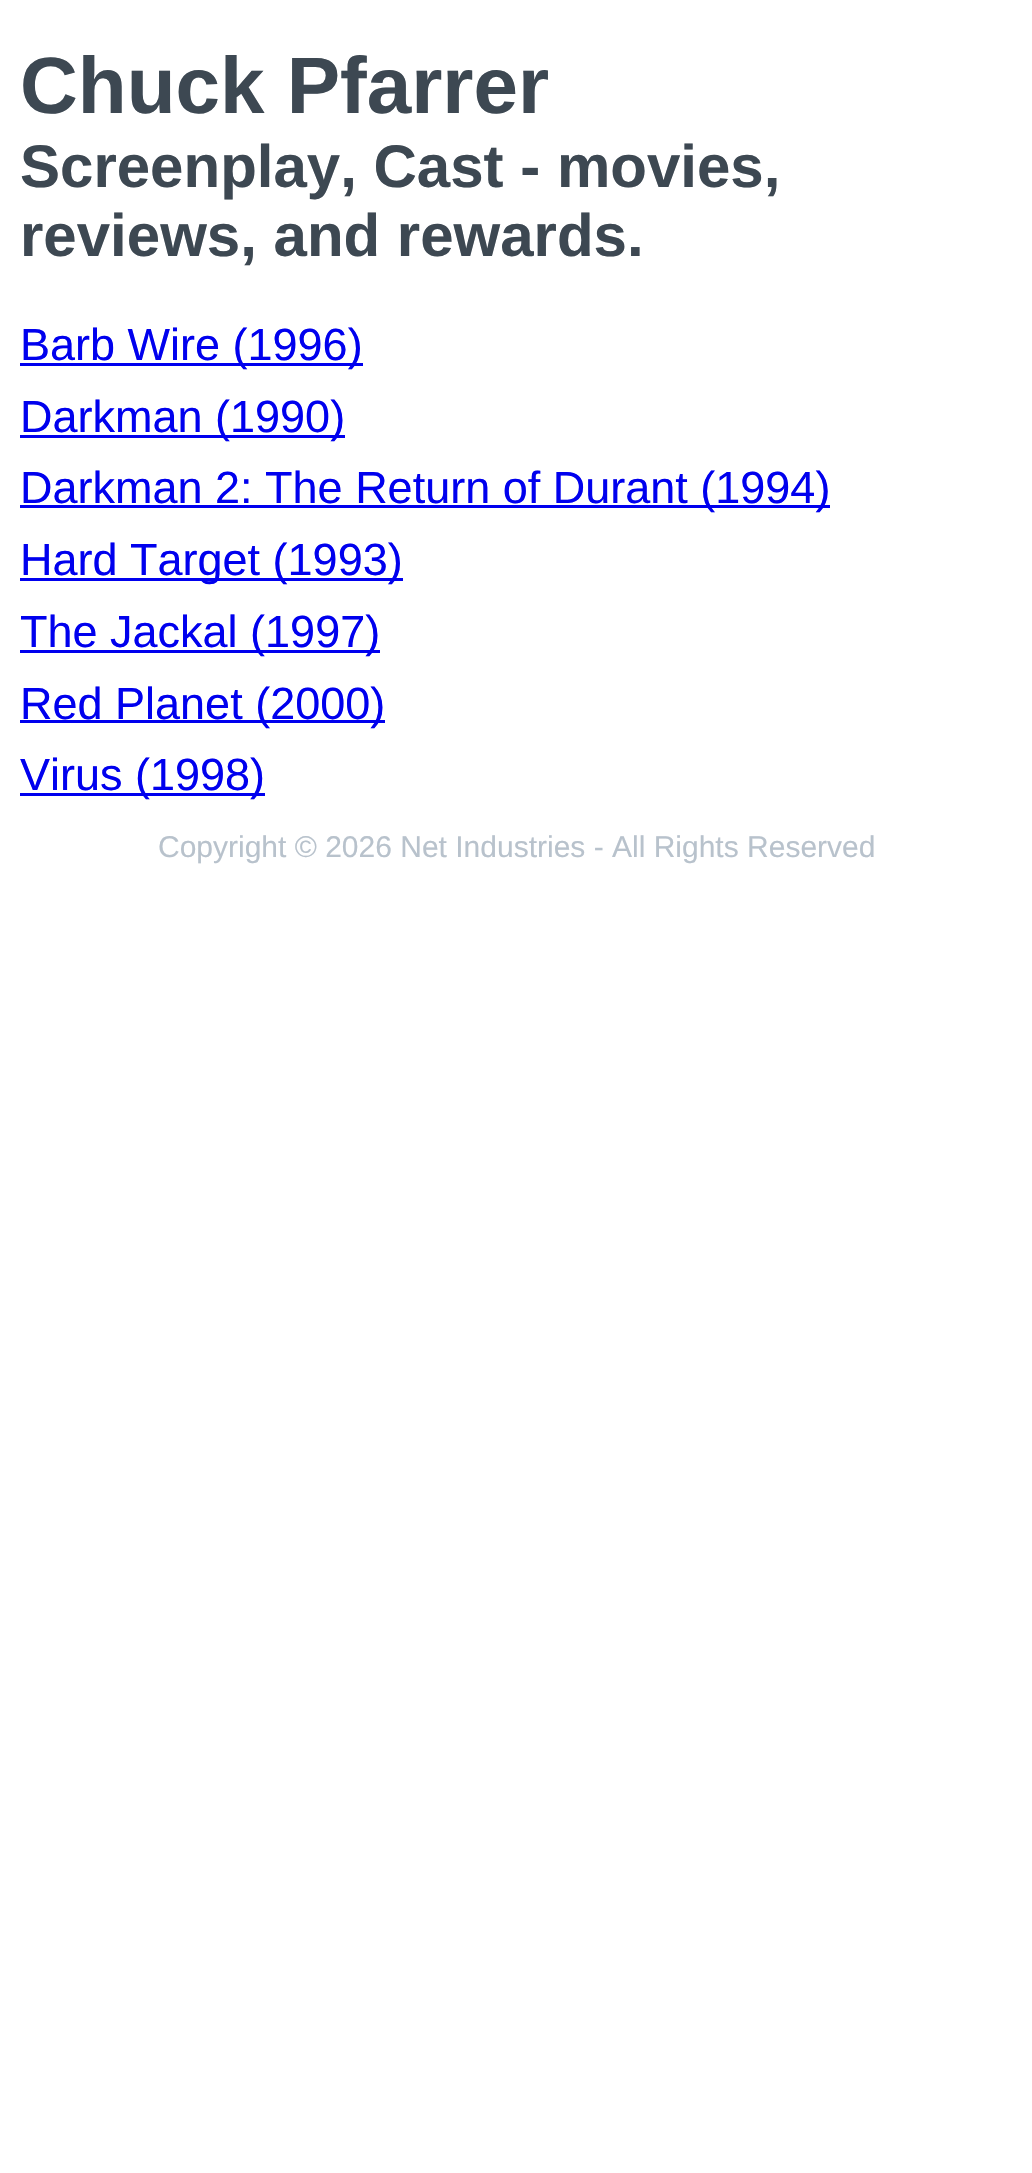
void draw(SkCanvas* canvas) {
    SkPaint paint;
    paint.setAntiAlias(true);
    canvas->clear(0xFFFFFFFF);
    SkFont font1(fontMgr->matchFamilyStyle("Liberation Sans", SkFontStyle::Bold()), 80);
    font1.setSubpixel(true);
    paint.setColor(0xFF3D4852);
    canvas->drawString("Chuck Pfarrer", 20, 113, font1, paint);
    SkFont font2(fontMgr->matchFamilyStyle("Liberation Sans", SkFontStyle::Bold()), 60);
    font2.setSubpixel(true);
    canvas->drawString("Screenplay, Cast - movies,", 20, 187, font2, paint);
    canvas->drawString("reviews, and rewards.", 20, 256, font2, paint);
    paint.setColor(0xFF0000EE);
    canvas->drawRect(SkRect::MakeXYWH(20, 363, 343, 3), paint);
    SkFont font3(fontMgr->matchFamilyStyle("Liberation Sans", SkFontStyle::Normal()), 45);
    font3.setSubpixel(true);
    canvas->drawString("Barb Wire (1996)", 20, 360, font3, paint);
    canvas->drawRect(SkRect::MakeXYWH(20, 435, 325, 3), paint);
    canvas->drawString("Darkman (1990)", 20, 432, font3, paint);
    canvas->drawRect(SkRect::MakeXYWH(20, 505, 810, 3), paint);
    canvas->drawString("Darkman 2: The Return of Durant (1994)", 20, 503, font3, paint);
    canvas->drawRect(SkRect::MakeXYWH(20, 578, 383, 3), paint);
    canvas->drawString("Hard Target (1993)", 20, 575, font3, paint);
    canvas->drawRect(SkRect::MakeXYWH(20, 650, 360, 3), paint);
    canvas->drawString("The Jackal (1997)", 20, 647, font3, paint);
    canvas->drawRect(SkRect::MakeXYWH(20, 720, 365, 3), paint);
    canvas->drawString("Red Planet (2000)", 20, 719, font3, paint);
    canvas->drawRect(SkRect::MakeXYWH(20, 793, 245, 3), paint);
    canvas->drawString("Virus (1998)", 20, 790, font3, paint);
    SkFont font4(fontMgr->matchFamilyStyle("Liberation Sans", SkFontStyle::Normal()), 30);
    font4.setSubpixel(true);
    paint.setColor(0xFFB8C2CC);
    canvas->drawString("Copyright © 2026 Net Industries - All Rights Reserved", 158, 857, font4, paint);
}
